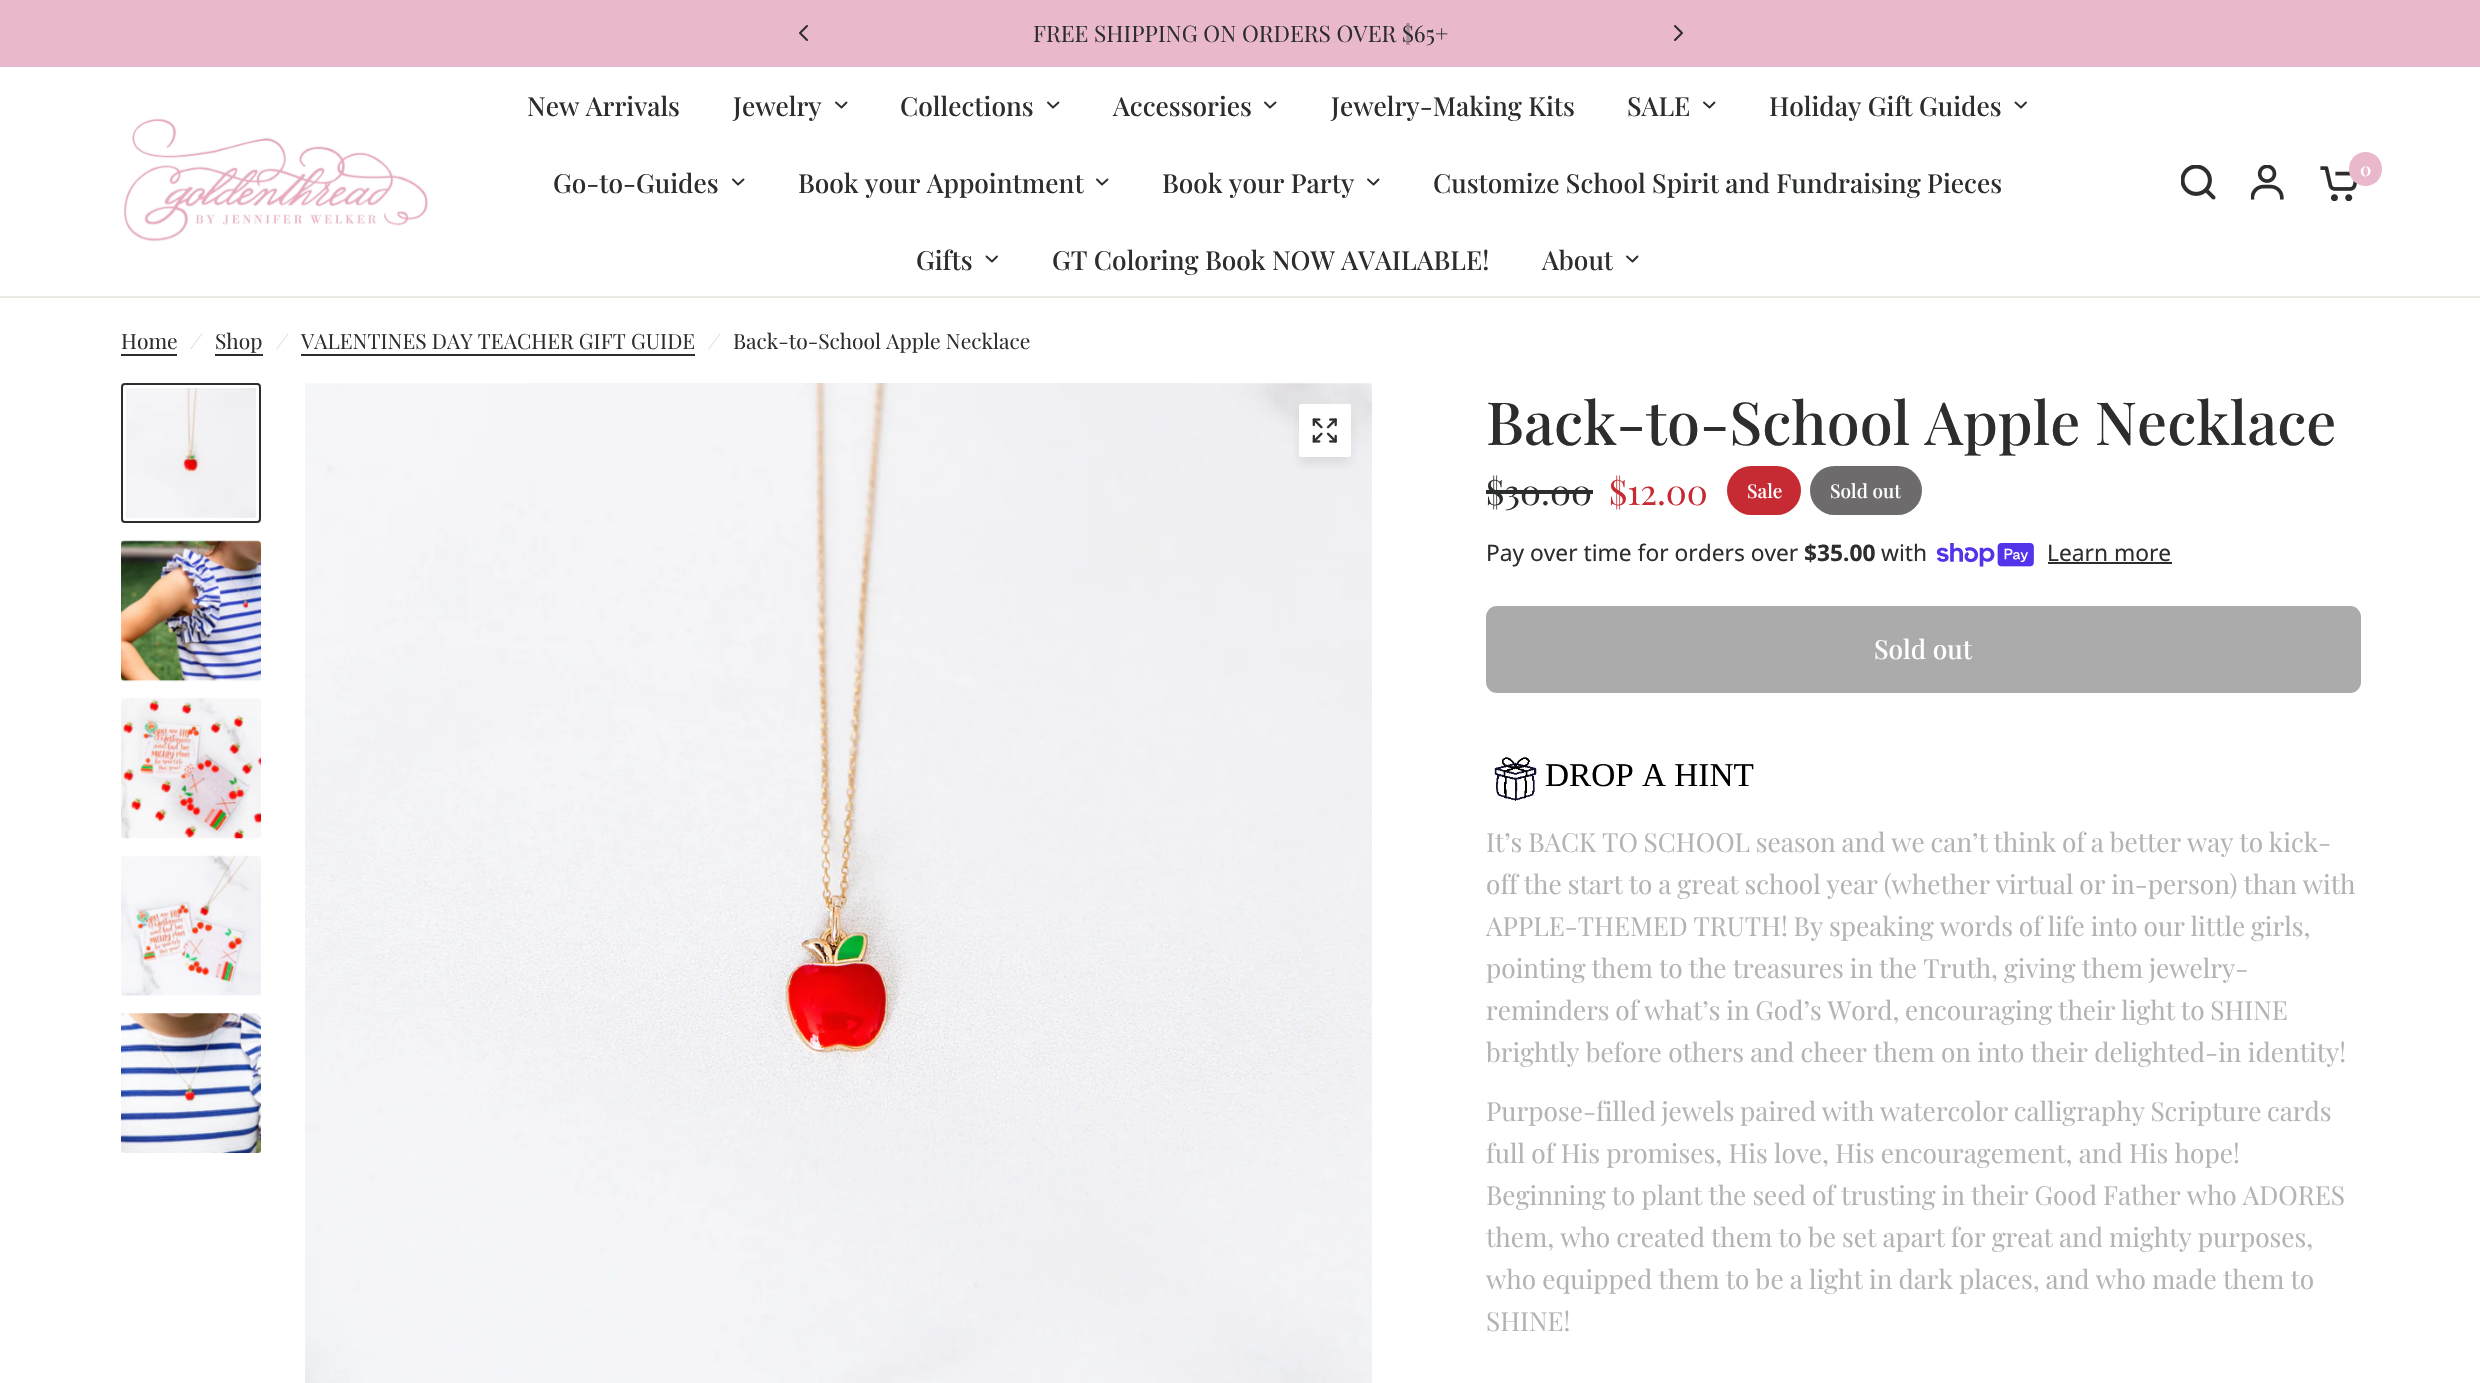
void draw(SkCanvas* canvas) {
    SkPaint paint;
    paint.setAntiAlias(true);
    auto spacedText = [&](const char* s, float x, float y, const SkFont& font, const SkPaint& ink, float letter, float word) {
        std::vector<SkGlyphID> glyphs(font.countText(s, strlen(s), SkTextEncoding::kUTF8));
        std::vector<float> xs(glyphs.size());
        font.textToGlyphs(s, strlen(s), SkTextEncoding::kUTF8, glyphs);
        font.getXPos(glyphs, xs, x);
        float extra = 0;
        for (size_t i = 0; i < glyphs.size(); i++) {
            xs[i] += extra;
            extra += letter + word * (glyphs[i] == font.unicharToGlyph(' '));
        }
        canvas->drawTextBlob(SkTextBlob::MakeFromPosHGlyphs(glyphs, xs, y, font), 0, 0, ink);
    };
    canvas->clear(0xFFEAB8CD);
    paint.setStyle(SkPaint::kStroke_Style);
    paint.setStrokeWidth(2.1f);
    paint.setStrokeCap(SkPaint::kRound_Cap);
    paint.setStrokeJoin(SkPaint::kRound_Join);
    paint.setColor(0xFF2C2D2E);
    canvas->drawPath(SkPathBuilder().moveTo(807, 26).lineTo(800, 33).lineTo(807, 40).detach(), paint);
    SkFont font1(fontMgr->matchFamilyStyle("Playfair Display", SkFontStyle::Normal()), 22.75f);
    font1.setSubpixel(true);
    paint.setStyle(SkPaint::kFill_Style);
    canvas->drawString("FREE SHIPPING ON ORDERS OVER $65+", 1033, 42, font1, paint);
    paint.setStyle(SkPaint::kStroke_Style);
    canvas->drawPath(SkPathBuilder().moveTo(1675, 26).lineTo(1682, 33).lineTo(1675, 40).detach(), paint);
    paint.setStyle(SkPaint::kFill_Style);
    paint.setColor(0xFFFFFFFF);
    canvas->drawRect(SkRect::MakeXYWH(0, 67, 2480, 229), paint);
    canvas->drawImageRect(SkImages::DeferredFromEncodedData(SkData::MakeFromFileName("img1.png")), SkRect::MakeXYWH(124, 118, 304, 124), SkSamplingOptions());
    SkFont font2(fontMgr->matchFamilyStyle("Playfair Display", SkFontStyle(500, SkFontStyle::kNormal_Width, SkFontStyle::kUpright_Slant)), 26.25f);
    font2.setSubpixel(true);
    paint.setColor(0xFF2C2D2E);
    canvas->drawString("New Arrivals", 527, 116, font2, paint);
    canvas->drawString("Jewelry", 733, 116, font2, paint);
    paint.setStyle(SkPaint::kStroke_Style);
    paint.setStrokeWidth(1.9f);
    canvas->drawPath(SkPathBuilder().moveTo(846.5f, 102.5f).lineTo(841.5f, 107.5f).lineTo(836, 102.5f).detach(), paint);
    paint.setStyle(SkPaint::kFill_Style);
    canvas->drawString("Collections", 900, 116, font2, paint);
    paint.setStyle(SkPaint::kStroke_Style);
    canvas->drawPath(SkPathBuilder().moveTo(1058.5f, 102.5f).lineTo(1053, 107.5f).lineTo(1048, 102.5f).detach(), paint);
    paint.setStyle(SkPaint::kFill_Style);
    canvas->drawString("Accessories", 1113, 116, font2, paint);
    paint.setStyle(SkPaint::kStroke_Style);
    canvas->drawPath(SkPathBuilder().moveTo(1275.5f, 102.5f).lineTo(1270, 107.5f).lineTo(1265, 102.5f).detach(), paint);
    paint.setStyle(SkPaint::kFill_Style);
    canvas->drawString("Jewelry-Making Kits", 1331, 116, font2, paint);
    canvas->drawString("SALE", 1627, 116, font2, paint);
    paint.setStyle(SkPaint::kStroke_Style);
    canvas->drawPath(SkPathBuilder().moveTo(1714.5f, 102.5f).lineTo(1709.5f, 107.5f).lineTo(1704, 102.5f).detach(), paint);
    paint.setStyle(SkPaint::kFill_Style);
    canvas->drawString("Holiday Gift Guides", 1769, 116, font2, paint);
    paint.setStyle(SkPaint::kStroke_Style);
    canvas->drawPath(SkPathBuilder().moveTo(2026, 102.5f).lineTo(2021, 107.5f).lineTo(2015.5f, 102.5f).detach(), paint);
    paint.setStyle(SkPaint::kFill_Style);
    canvas->drawString("Go-to-Guides", 553, 193, font2, paint);
    paint.setStyle(SkPaint::kStroke_Style);
    canvas->drawPath(SkPathBuilder().moveTo(743.5f, 179.5f).lineTo(738, 184.5f).lineTo(733, 179.5f).detach(), paint);
    paint.setStyle(SkPaint::kFill_Style);
    canvas->drawString("Book your Appointment", 798, 193, font2, paint);
    paint.setStyle(SkPaint::kStroke_Style);
    canvas->drawPath(SkPathBuilder().moveTo(1107.5f, 179.5f).lineTo(1102, 184.5f).lineTo(1097, 179.5f).detach(), paint);
    paint.setStyle(SkPaint::kFill_Style);
    canvas->drawString("Book your Party", 1162, 193, font2, paint);
    paint.setStyle(SkPaint::kStroke_Style);
    canvas->drawPath(SkPathBuilder().moveTo(1378.5f, 179.5f).lineTo(1373.5f, 184.5f).lineTo(1368, 179.5f).detach(), paint);
    paint.setStyle(SkPaint::kFill_Style);
    canvas->drawString("Customize School Spirit and Fundraising Pieces", 1433, 193, font2, paint);
    canvas->drawString("Gifts", 916, 270, font2, paint);
    paint.setStyle(SkPaint::kStroke_Style);
    canvas->drawPath(SkPathBuilder().moveTo(997, 256.5f).lineTo(992, 261.5f).lineTo(986.5f, 256.5f).detach(), paint);
    paint.setStyle(SkPaint::kFill_Style);
    canvas->drawString("GT Coloring Book NOW AVAILABLE!", 1052, 270, font2, paint);
    canvas->drawString("About", 1542, 270, font2, paint);
    paint.setStyle(SkPaint::kStroke_Style);
    canvas->drawPath(SkPathBuilder().moveTo(1637.5f, 256.5f).lineTo(1632.5f, 261.5f).lineTo(1627, 256.5f).detach(), paint);
    canvas->drawImageRect(SkImages::DeferredFromEncodedData(SkData::MakeFromFileName("img2.png")), SkRect::MakeXYWH(2181, 165, 35, 35), SkSamplingOptions());
    canvas->drawImageRect(SkImages::DeferredFromEncodedData(SkData::MakeFromFileName("img3.png")), SkRect::MakeXYWH(2251, 165, 33, 35), SkSamplingOptions());
    canvas->drawImageRect(SkImages::DeferredFromEncodedData(SkData::MakeFromFileName("img4.png")), SkRect::MakeXYWH(2320, 166, 37, 35), SkSamplingOptions());
    paint.setStyle(SkPaint::kFill_Style);
    paint.setColor(0xFFEAB8CD);
    canvas->drawRoundRect(SkRect::MakeXYWH(2349, 152, 33, 34), 16.5f, 16.5f, paint);
    SkFont font3(fontMgr->matchFamilyStyle("Playfair Display", SkFontStyle(600, SkFontStyle::kNormal_Width, SkFontStyle::kUpright_Slant)), 18);
    font3.setSubpixel(true);
    paint.setColor(0xFFFFFFFF);
    canvas->drawString("0", 2360, 176, font3, paint);
    paint.setColor(0xFFEDEAE6);
    canvas->drawRect(SkRect::MakeXYWH(0, 296, 2480, 2), paint);
    paint.setColor(0xFFFFFFFF);
    canvas->drawRect(SkRect::MakeXYWH(0, 298, 2480, 1085), paint);
    SkFont font4(fontMgr->matchFamilyStyle("Playfair Display", SkFontStyle::Normal()), 21);
    font4.setSubpixel(true);
    paint.setColor(0xFF2C2D2E);
    canvas->drawString("Home", 121, 349, font4, paint);
    canvas->drawRect(SkRect::MakeXYWH(121, 354, 56, 2), paint);
    SkFont font5(fontMgr->matchFamilyStyle("Playfair Display", SkFontStyle::Italic()), 21);
    font5.setSubpixel(true);
    paint.setColor(0xFFD5D5D5);
    canvas->drawString("/", 191, 349, font5, paint);
    paint.setColor(0xFF2C2D2E);
    canvas->drawString("Shop", 215, 349, font4, paint);
    canvas->drawRect(SkRect::MakeXYWH(215, 354, 48, 2), paint);
    paint.setColor(0xFFD5D5D5);
    canvas->drawString("/", 277, 349, font5, paint);
    paint.setColor(0xFF2C2D2E);
    canvas->drawString("VALENTINES DAY TEACHER GIFT GUIDE", 301, 349, font4, paint);
    canvas->drawRect(SkRect::MakeXYWH(301, 354, 394, 2), paint);
    paint.setColor(0xFFD5D5D5);
    canvas->drawString("/", 709, 349, font5, paint);
    paint.setColor(0xFF2C2D2E);
    canvas->drawString("Back-to-School Apple Necklace", 733, 349, font4, paint);
    canvas->drawImageRect(SkImages::DeferredFromEncodedData(SkData::MakeFromFileName("img5.png")), SkRect::MakeXYWH(121, 383, 140, 141), SkSamplingOptions());
    paint.setStyle(SkPaint::kStroke_Style);
    paint.setStrokeWidth(5);
    paint.setStrokeCap(SkPaint::kButt_Cap);
    paint.setStrokeJoin(SkPaint::kMiter_Join);
    paint.setColor(0xFFFFFFFF);
    canvas->drawRoundRect(SkRect::MakeXYWH(123.5f, 385.5f, 135, 135), 1.5f, 1.5f, paint);
    paint.setStrokeWidth(2);
    paint.setColor(0xFF2C2D2E);
    canvas->drawRoundRect(SkRect::MakeXYWH(122, 384, 138, 138), 3, 3, paint);
    canvas->drawImageRect(SkImages::DeferredFromEncodedData(SkData::MakeFromFileName("img6.png")), SkRect::MakeXYWH(121, 540, 140, 142), SkSamplingOptions());
    canvas->drawImageRect(SkImages::DeferredFromEncodedData(SkData::MakeFromFileName("img7.png")), SkRect::MakeXYWH(121, 698, 140, 141), SkSamplingOptions());
    canvas->drawImageRect(SkImages::DeferredFromEncodedData(SkData::MakeFromFileName("img8.png")), SkRect::MakeXYWH(121, 855, 140, 141), SkSamplingOptions());
    canvas->drawImageRect(SkImages::DeferredFromEncodedData(SkData::MakeFromFileName("img9.png")), SkRect::MakeXYWH(121, 1013, 140, 140), SkSamplingOptions());
    canvas->drawImageRect(SkImages::DeferredFromEncodedData(SkData::MakeFromFileName("img10.png")), SkRect::MakeXYWH(305, 383, 1067, 1000), SkSamplingOptions());
    paint.setStyle(SkPaint::kFill_Style);
    paint.setColor(0x14000000);
    paint.setMaskFilter(SkMaskFilter::MakeBlur(kNormal_SkBlurStyle, 5));
    canvas->drawRoundRect(SkRect::MakeXYWH(1299, 411, 52, 53), 2, 2, paint);
    paint.setMaskFilter(nullptr);
    paint.setColor(0xFFFFFFFF);
    canvas->drawRoundRect(SkRect::MakeXYWH(1299, 404, 52, 53), 2, 2, paint);
    canvas->drawImageRect(SkImages::DeferredFromEncodedData(SkData::MakeFromFileName("img11.png")), SkRect::MakeXYWH(1312, 418, 25, 25), SkSamplingOptions());
    SkFont font6(fontMgr->matchFamilyStyle("Playfair Display", SkFontStyle(500, SkFontStyle::kNormal_Width, SkFontStyle::kUpright_Slant)), 59.5f);
    font6.setSubpixel(true);
    paint.setColor(0xFF2C2D2E);
    canvas->drawString("Back-to-School Apple Necklace", 1486, 445, font6, paint);
    SkFont font7(fontMgr->matchFamilyStyle("Playfair Display", SkFontStyle::Normal()), 35);
    font7.setSubpixel(true);
    canvas->drawString("$30.00", 1486, 505, font7, paint);
    canvas->drawRect(SkRect::MakeXYWH(1486, 490, 107, 4), paint);
    paint.setColor(0xFFC62A32);
    canvas->drawString("$12.00", 1609, 505, font7, paint);
    canvas->drawRoundRect(SkRect::MakeXYWH(1727, 466, 74, 49), 24.5f, 24.5f, paint);
    SkFont font8(fontMgr->matchFamilyStyle("Playfair Display", SkFontStyle(500, SkFontStyle::kNormal_Width, SkFontStyle::kUpright_Slant)), 19);
    font8.setSubpixel(true);
    paint.setColor(0xFFFFFFFF);
    canvas->drawString("Sale", 1747, 498, font8, paint);
    paint.setColor(0xFF6D6B6B);
    canvas->drawRoundRect(SkRect::MakeXYWH(1810, 466, 112, 49), 24.5f, 24.5f, paint);
    paint.setColor(0xFFFFFFFF);
    canvas->drawString("Sold out", 1830, 498, font8, paint);
    SkFont font9(fontMgr->matchFamilyStyle("Noto Sans", SkFontStyle::Normal()), 22.75f);
    font9.setSubpixel(true);
    paint.setColor(0xFF2C2D2E);
    canvas->drawString("Pay over time for orders over", 1486, 561, font9, paint);
    SkFont font10(fontMgr->matchFamilyStyle("Noto Sans", SkFontStyle::Bold()), 22.75f);
    font10.setSubpixel(true);
    canvas->drawString("$35.00", 1804, 561, font10, paint);
    canvas->drawString("with", 1881, 561, font9, paint);
    canvas->drawImageRect(SkImages::DeferredFromEncodedData(SkData::MakeFromFileName("img12.png")), SkRect::MakeXYWH(1936, 543, 98, 24), SkSamplingOptions());
    canvas->drawString("Learn more", 2047, 561, font9, paint);
    canvas->drawRect(SkRect::MakeXYWH(2048, 562, 124, 2), paint);
    paint.setColor(0xFFABABAB);
    canvas->drawRoundRect(SkRect::MakeXYWH(1486, 606, 875, 87), 11, 11, paint);
    paint.setColor(0xFFFFFFFF);
    canvas->drawString("Sold out", 1874, 659, font2, paint);
    canvas->drawImageRect(SkImages::DeferredFromEncodedData(SkData::MakeFromFileName("img13.png")), SkRect::MakeXYWH(1494, 757, 43, 44), SkSamplingOptions());
    SkFont font11(fontMgr->matchFamilyStyle("Liberation Serif", SkFontStyle::Normal()), 33.25f);
    font11.setSubpixel(true);
    paint.setColor(0xFF000000);
    canvas->drawString("DROP A HINT", 1545, 786, font11, paint);
    SkFont font12(fontMgr->matchFamilyStyle("Playfair Display", SkFontStyle::Normal()), 26.25f);
    font12.setSubpixel(true);
    paint.setColor(0xFFB3B3B3);
    spacedText("It’s BACK TO SCHOOL season and we can’t think of a better way to kick-", 1486, 852, font12, paint, 0, -0.75f);
    spacedText("off the start to a great school year (whether virtual or in-person) than with", 1486, 894, font12, paint, 0, -0.6f);
    spacedText("APPLE-THEMED TRUTH! By speaking words of life into our little girls,", 1486, 936, font12, paint, 0, -0.75f);
    spacedText("pointing them to the treasures in the Truth, giving them jewelry-", 1486, 978, font12, paint, 0, -0.5f);
    spacedText("reminders of what’s in God’s Word, encouraging their light to SHINE", 1486, 1020, font12, paint, 0, -0.75f);
    spacedText("brightly before others and cheer them on into their delighted-in identity!", 1486, 1062, font12, paint, 0, -0.25f);
    spacedText("Purpose-filled jewels paired with watercolor calligraphy Scripture cards", 1486, 1121, font12, paint, 0, -1);
    spacedText("full of His promises, His love, His encouragement, and His hope!", 1486, 1163, font12, paint, 0, -0.25f);
    spacedText("Beginning to plant the seed of trusting in their Good Father who ADORES", 1486, 1205, font12, paint, 0, -0.5f);
    spacedText("them, who created them to be set apart for great and mighty purposes,", 1486, 1247, font12, paint, 0, -0.5f);
    spacedText("who equipped them to be a light in dark places, and who made them to", 1486, 1289, font12, paint, 0, -0.4f);
    canvas->drawString("SHINE!", 1486, 1331, font12, paint);
}
